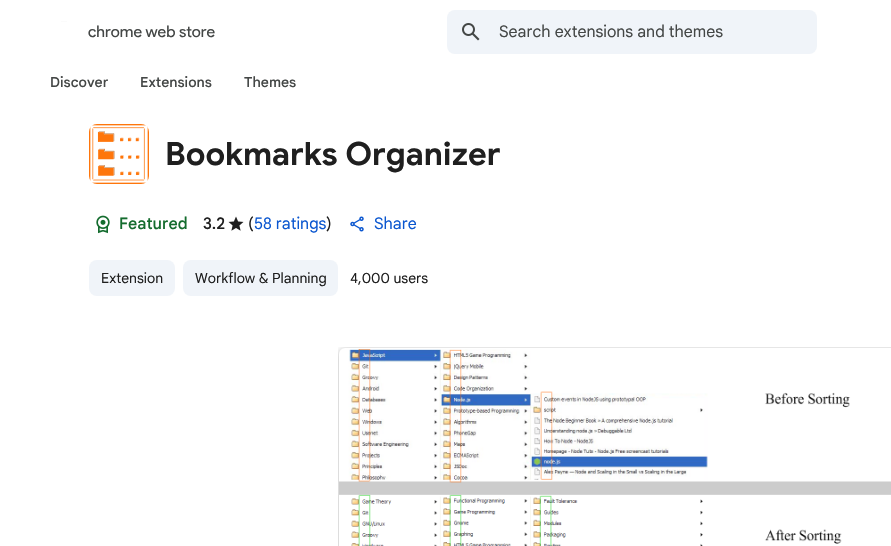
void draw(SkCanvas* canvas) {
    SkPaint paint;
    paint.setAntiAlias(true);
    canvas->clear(0xFFFFFFFF);
    canvas->drawImageRect(SkImages::DeferredFromEncodedData(SkData::MakeFromFileName("img1.png")), SkRect::MakeXYWH(61, 21, 6, 1), SkSamplingOptions());
    SkFont font1(fontMgr->matchFamilyStyle("Product Sans", SkFontStyle::Normal()), 16);
    font1.setSubpixel(true);
    paint.setColor(0xFF444746);
    canvas->drawString("chrome web store", 88, 37, font1, paint);
    paint.setColor(0xFFF0F4F9);
    canvas->drawRoundRect(SkRect::MakeXYWH(447, 10, 370, 44), 8, 8, paint);
    canvas->drawImageRect(SkImages::DeferredFromEncodedData(SkData::MakeFromFileName("img2.png")), SkRect::MakeXYWH(462, 23, 18, 18), SkSamplingOptions());
    SkFont font2(fontMgr->matchFamilyStyle("Google Sans", SkFontStyle::Normal()), 16);
    font2.setSubpixel(true);
    paint.setColor(0xFF444746);
    canvas->drawString("Search extensions and themes", 499, 37, font2, paint);
    SkFont font3(fontMgr->matchFamilyStyle("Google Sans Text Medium", SkFontStyle(500, SkFontStyle::kNormal_Width, SkFontStyle::kUpright_Slant)), 14);
    font3.setSubpixel(true);
    canvas->drawString("Discover", 50, 87, font3, paint);
    canvas->drawString("Extensions", 140, 87, font3, paint);
    canvas->drawString("Themes", 244, 87, font3, paint);
    canvas->drawImageRect(SkImages::DeferredFromEncodedData(SkData::MakeFromFileName("img3.png")), SkRect::MakeXYWH(89, 124, 60, 60), SkSamplingOptions());
    SkFont font4(fontMgr->matchFamilyStyle("Google Sans", SkFontStyle::Bold()), 32);
    font4.setSubpixel(true);
    paint.setColor(0xFF1F1F1F);
    canvas->drawString("Bookmarks Organizer", 165, 165, font4, paint);
    canvas->drawImageRect(SkImages::DeferredFromEncodedData(SkData::MakeFromFileName("img4.png")), SkRect::MakeXYWH(96, 215, 14, 19), SkSamplingOptions());
    SkFont font5(fontMgr->matchFamilyStyle("Google Sans", SkFontStyle(500, SkFontStyle::kNormal_Width, SkFontStyle::kUpright_Slant)), 16);
    font5.setSubpixel(true);
    paint.setColor(0xFF146C2E);
    canvas->drawString("Featured", 119, 229, font5, paint);
    paint.setColor(0xFF1F1F1F);
    canvas->drawString("3.2", 203, 229, font5, paint);
    canvas->drawImageRect(SkImages::DeferredFromEncodedData(SkData::MakeFromFileName("img5.png")), SkRect::MakeXYWH(228, 216, 16, 15), SkSamplingOptions());
    canvas->drawString("(", 248, 229, font2, paint);
    paint.setColor(0xFF0B57D0);
    canvas->drawString("58 ratings", 254, 229, font2, paint);
    paint.setColor(0xFF1F1F1F);
    canvas->drawString(")", 326, 229, font2, paint);
    canvas->drawImageRect(SkImages::DeferredFromEncodedData(SkData::MakeFromFileName("img6.png")), SkRect::MakeXYWH(350, 216, 14, 16), SkSamplingOptions());
    SkFont font6(fontMgr->matchFamilyStyle("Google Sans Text", SkFontStyle::Normal()), 16);
    font6.setSubpixel(true);
    paint.setColor(0xFF0B57D0);
    canvas->drawString("Share", 374, 229, font6, paint);
    paint.setColor(0xFFF0F4F9);
    canvas->drawRoundRect(SkRect::MakeXYWH(89, 260, 86, 36), 8, 8, paint);
    SkFont font7(fontMgr->matchFamilyStyle("Google Sans", SkFontStyle::Normal()), 14);
    font7.setSubpixel(true);
    paint.setColor(0xFF1F1F1F);
    canvas->drawString("Extension", 101, 283, font7, paint);
    paint.setColor(0xFFF0F4F9);
    canvas->drawRoundRect(SkRect::MakeXYWH(183, 260, 155, 36), 8, 8, paint);
    paint.setColor(0xFF1F1F1F);
    canvas->drawString("Workflow & Planning", 195, 283, font7, paint);
    canvas->drawString("4,000 users", 350, 283, font7, paint);
    canvas->drawImageRect(SkImages::DeferredFromEncodedData(SkData::MakeFromFileName("img7.png")), SkRect::MakeXYWH(338, 347, 553, 199), SkSamplingOptions());
}
